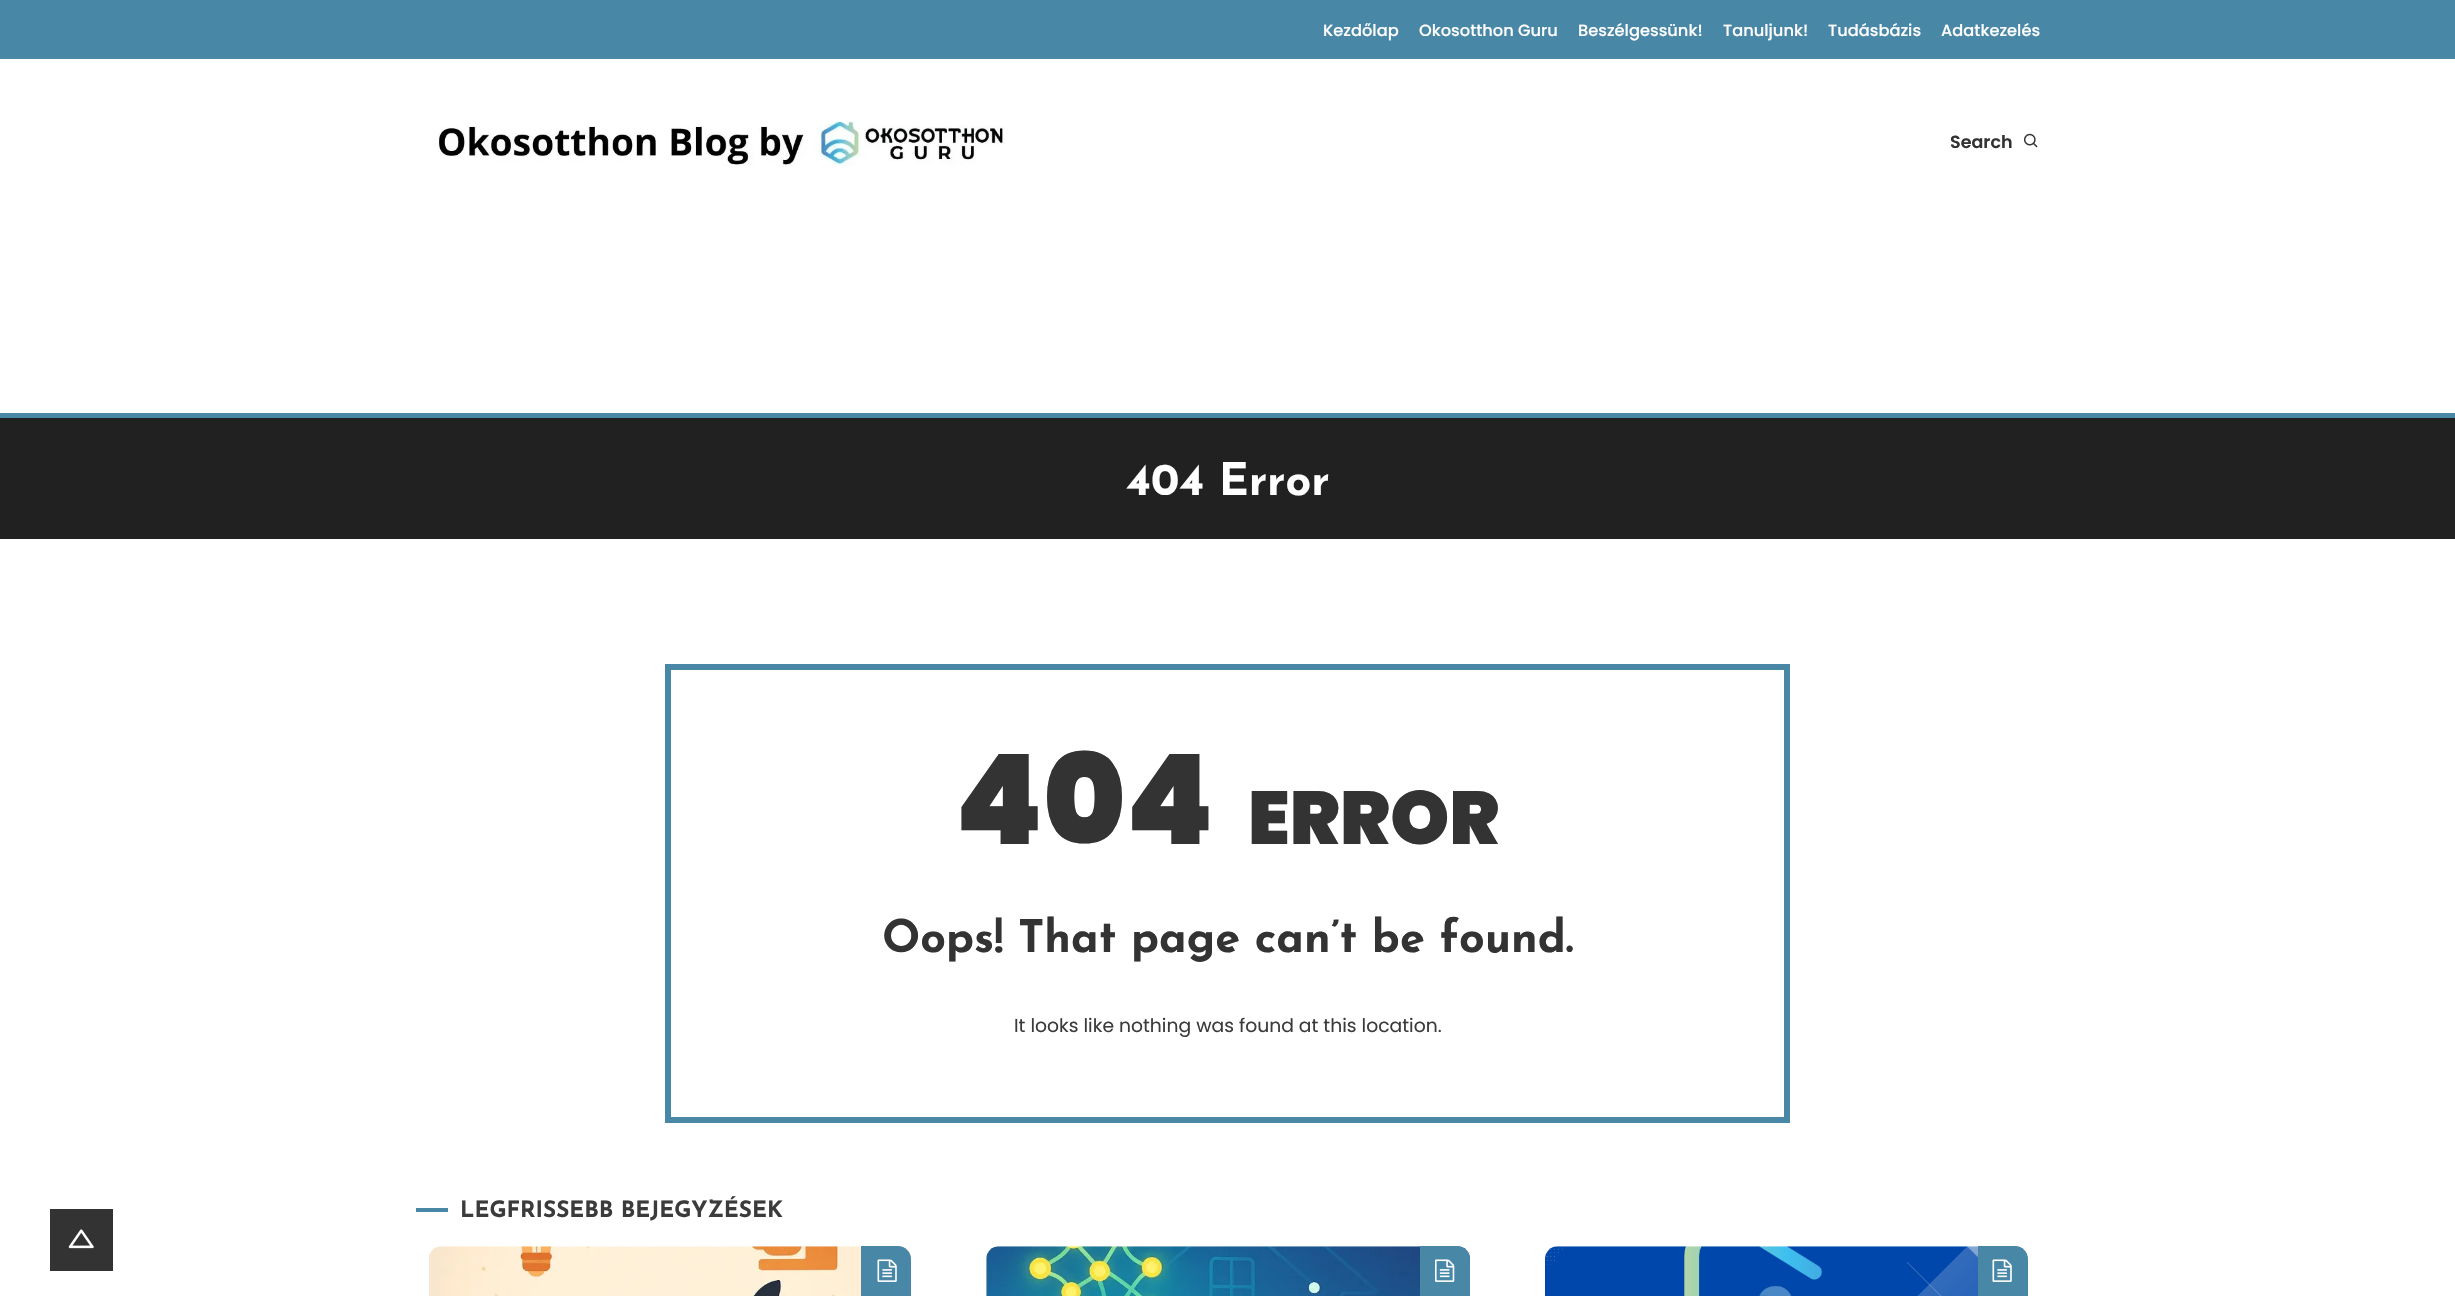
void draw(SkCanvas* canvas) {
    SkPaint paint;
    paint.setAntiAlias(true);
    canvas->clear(0xFFFFFFFF);
    paint.setColor(0xFF4987A7);
    canvas->drawRect(SkRect::MakeXYWH(0, 0, 2455, 59), paint);
    SkFont font1(fontMgr->matchFamilyStyle("Poppins", SkFontStyle(500, SkFontStyle::kNormal_Width, SkFontStyle::kUpright_Slant)), 16.25f);
    font1.setSubpixel(true);
    paint.setColor(0xFFFFFFFF);
    canvas->drawString("Kezdőlap", 1323, 36, font1, paint);
    canvas->drawString("Okosotthon Guru", 1419, 36, font1, paint);
    canvas->drawString("Beszélgessünk!", 1578, 36, font1, paint);
    canvas->drawString("Tanuljunk!", 1723, 36, font1, paint);
    canvas->drawString("Tudásbázis", 1828, 36, font1, paint);
    canvas->drawString("Adatkezelés", 1941, 36, font1, paint);
    canvas->drawImageRect(SkImages::DeferredFromEncodedData(SkData::MakeFromFileName("img1.png")), SkRect::MakeXYWH(438, 121, 567, 45), SkSamplingOptions());
    SkFont font2(fontMgr->matchFamilyStyle("Poppins", SkFontStyle(600, SkFontStyle::kNormal_Width, SkFontStyle::kUpright_Slant)), 17.5f);
    font2.setSubpixel(true);
    paint.setColor(0xFF333333);
    canvas->drawString("Search", 1950, 148, font2, paint);
    canvas->drawImageRect(SkImages::DeferredFromEncodedData(SkData::MakeFromFileName("img2.png")), SkRect::MakeXYWH(2023, 133, 15, 15), SkSamplingOptions());
    paint.setColor(0xFF212121);
    canvas->drawRect(SkRect::MakeXYWH(0, 418, 2455, 121), paint);
    paint.setColor(0xFF4987A7);
    canvas->drawRect(SkRect::MakeXYWH(0, 413, 2455, 5), paint);
    SkFont font3(fontMgr->matchFamilyStyle("Josefin Sans", SkFontStyle(100, SkFontStyle::kNormal_Width, SkFontStyle::kUpright_Slant)), 45);
    font3.setSubpixel(true);
    paint.setColor(0xFFFFFFFF);
    canvas->drawString("404 Error", 1126, 495, font3, paint);
    paint.setStyle(SkPaint::kStroke_Style);
    paint.setStrokeWidth(6);
    paint.setColor(0xFF4987A7);
    canvas->drawRect(SkRect::MakeXYWH(668, 667, 1119, 453), paint);
    SkFont font4(fontMgr->matchFamilyStyle("Poppins", SkFontStyle(900, SkFontStyle::kNormal_Width, SkFontStyle::kUpright_Slant)), 125);
    font4.setSubpixel(true);
    paint.setStyle(SkPaint::kFill_Style);
    paint.setColor(0xFF333333);
    canvas->drawString("404", 955, 844, font4, paint);
    SkFont font5(fontMgr->matchFamilyStyle("Poppins", SkFontStyle(900, SkFontStyle::kNormal_Width, SkFontStyle::kUpright_Slant)), 75);
    font5.setSubpixel(true);
    canvas->drawString("ERROR", 1248, 844, font5, paint);
    canvas->drawString("Oops! That page can’t be found.", 882, 952, font3, paint);
    SkFont font6(fontMgr->matchFamilyStyle("Poppins", SkFontStyle::Normal()), 18.75f);
    font6.setSubpixel(true);
    paint.setColor(0xFF3B3B3B);
    canvas->drawString("It looks like nothing was found at this location.", 1014, 1032, font6, paint);
    paint.setColor(0xFF4987A7);
    canvas->drawRect(SkRect::MakeXYWH(416, 1208, 32, 4), paint);
    SkFont font7(fontMgr->matchFamilyStyle("Josefin Sans", SkFontStyle(100, SkFontStyle::kNormal_Width, SkFontStyle::kUpright_Slant)), 22.5f);
    font7.setSubpixel(true);
    paint.setColor(0xFF3B3B3B);
    canvas->drawString("LEGFRISSEBB BEJEGYZÉSEK", 460, 1217, font7, paint);
    canvas->drawImageRect(SkImages::DeferredFromEncodedData(SkData::MakeFromFileName("img3.png")), SkRect::MakeXYWH(429, 1246, 482, 50), SkSamplingOptions());
    paint.setColor(0xFF4987A7);
    canvas->drawPath(SkPathBuilder().moveTo(861, 1246).lineTo(898, 1246).cubicTo(905, 1246, 911, 1252, 911, 1259).lineTo(911, 1296).lineTo(861, 1296).close().detach(), paint);
    canvas->drawImageRect(SkImages::DeferredFromEncodedData(SkData::MakeFromFileName("img4.png")), SkRect::MakeXYWH(877, 1259, 20, 23), SkSamplingOptions());
    canvas->drawImageRect(SkImages::DeferredFromEncodedData(SkData::MakeFromFileName("img5.png")), SkRect::MakeXYWH(986, 1246, 484, 50), SkSamplingOptions());
    canvas->drawPath(SkPathBuilder().moveTo(1420, 1246).lineTo(1457, 1246).cubicTo(1464, 1246, 1470, 1252, 1470, 1259).lineTo(1470, 1296).lineTo(1420, 1296).close().detach(), paint);
    canvas->drawImageRect(SkImages::DeferredFromEncodedData(SkData::MakeFromFileName("img6.png")), SkRect::MakeXYWH(1435, 1259, 20, 23), SkSamplingOptions());
    canvas->drawImageRect(SkImages::DeferredFromEncodedData(SkData::MakeFromFileName("img7.png")), SkRect::MakeXYWH(1545, 1246, 483, 50), SkSamplingOptions());
    canvas->drawPath(SkPathBuilder().moveTo(1978, 1246).lineTo(2015, 1246).cubicTo(2022, 1246, 2028, 1252, 2028, 1259).lineTo(2028, 1296).lineTo(1978, 1296).close().detach(), paint);
    canvas->drawImageRect(SkImages::DeferredFromEncodedData(SkData::MakeFromFileName("img4.png")), SkRect::MakeXYWH(1992, 1259, 20, 23), SkSamplingOptions());
    paint.setColor(0xFF333333);
    canvas->drawRect(SkRect::MakeXYWH(50, 1209, 63, 62), paint);
    canvas->drawImageRect(SkImages::DeferredFromEncodedData(SkData::MakeFromFileName("img8.png")), SkRect::MakeXYWH(68, 1229, 26, 20), SkSamplingOptions());
}
